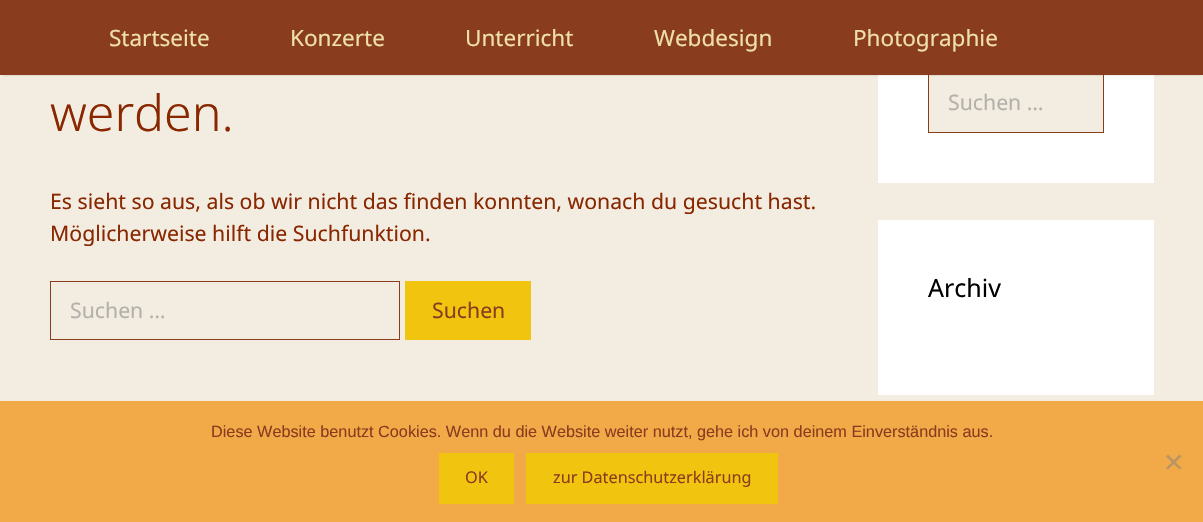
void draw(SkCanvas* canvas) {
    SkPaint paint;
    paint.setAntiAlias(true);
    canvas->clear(0xFFF2ECE1);
    paint.setColor(0xFFFFFFFF);
    canvas->drawRect(SkRect::MakeXYWH(878, 75, 276, 108), paint);
    paint.setColor(0xFFF2ECE1);
    canvas->drawRect(SkRect::MakeXYWH(929, 75, 174, 57), paint);
    paint.setStyle(SkPaint::kStroke_Style);
    paint.setStrokeWidth(1);
    paint.setColor(0xFF8A3C1E);
    canvas->drawRect(SkRect::MakeXYWH(928.5f, 73.5f, 175, 59), paint);
    paint.setStyle(SkPaint::kFill_Style);
    paint.setColor(0x33000000);
    paint.setMaskFilter(SkMaskFilter::MakeBlur(kNormal_SkBlurStyle, 1));
    canvas->drawRect(SkRect::MakeXYWH(3, 5, 1198, 70), paint);
    paint.setMaskFilter(nullptr);
    paint.setColor(0xFF8A3C1E);
    canvas->drawRect(SkRect::MakeXYWH(0, 0, 1203, 75), paint);
    SkFont font1(fontMgr->matchFamilyStyle("Noto Sans", SkFontStyle::Normal()), 22.5f);
    font1.setSubpixel(true);
    paint.setColor(0xFFEFE0A9);
    canvas->drawString("Startseite", 109, 46, font1, paint);
    canvas->drawString("Konzerte", 290, 46, font1, paint);
    canvas->drawString("Unterricht", 465, 46, font1, paint);
    canvas->drawString("Webdesign", 654, 46, font1, paint);
    canvas->drawString("Photographie", 853, 46, font1, paint);
    SkFont font2(fontMgr->matchFamilyStyle("Noto Sans", SkFontStyle(300, SkFontStyle::kNormal_Width, SkFontStyle::kUpright_Slant)), 50);
    font2.setSubpixel(true);
    paint.setColor(0xFF892700);
    canvas->drawString("werden.", 50, 131, font2, paint);
    SkFont font3(fontMgr->matchFamilyStyle("Noto Sans", SkFontStyle::Normal()), 21.25f);
    font3.setSubpixel(true);
    canvas->drawString("Es sieht so aus, als ob wir nicht das finden konnten, wonach du gesucht hast.", 50, 209, font3, paint);
    canvas->drawString("Möglicherweise hilft die Suchfunktion.", 50, 241, font3, paint);
    paint.setStyle(SkPaint::kStroke_Style);
    paint.setColor(0xFF8A3C1E);
    canvas->drawRect(SkRect::MakeXYWH(50.5f, 281.5f, 349, 58), paint);
    paint.setStyle(SkPaint::kFill_Style);
    paint.setColor(0xFFB4B1AB);
    canvas->drawString("Suchen …", 70, 318, font3, paint);
    paint.setColor(0xFFF1C40F);
    canvas->drawRect(SkRect::MakeXYWH(405, 281, 126, 59), paint);
    paint.setColor(0xFF8A3C1E);
    canvas->drawString("Suchen", 432, 318, font3, paint);
    paint.setColor(0xFFB4B1AB);
    canvas->drawString("Suchen …", 948, 110, font3, paint);
    paint.setColor(0xFFFFFFFF);
    canvas->drawRect(SkRect::MakeXYWH(878, 220, 276, 175), paint);
    SkFont font4(fontMgr->matchFamilyStyle("Noto Sans", SkFontStyle::Normal()), 25);
    font4.setSubpixel(true);
    paint.setColor(0xFF000000);
    canvas->drawString("Archiv", 928, 297, font4, paint);
    paint.setColor(0xFFF2A948);
    canvas->drawRect(SkRect::MakeXYWH(0, 401, 1203, 121), paint);
    SkFont font5(fontMgr->matchFamilyStyle("Liberation Sans", SkFontStyle::Normal()), 16.25f);
    font5.setSubpixel(true);
    paint.setColor(0xFF8A3C1E);
    canvas->drawString("Diese Website benutzt Cookies. Wenn du die Website weiter nutzt, gehe ich von deinem Einverständnis aus.", 211, 437, font5, paint);
    paint.setColor(0xFFB99564);
    canvas->drawPath(SkPathBuilder().moveTo(1179.5f, 454.5f).lineTo(1181.5f, 456.5f).lineTo(1168, 469.5f).lineTo(1166, 468).close().detach(), paint);
    canvas->drawPath(SkPathBuilder().moveTo(1166, 456.5f).lineTo(1168, 454.5f).lineTo(1181.5f, 468).lineTo(1179.5f, 469.5f).close().detach(), paint);
    paint.setColor(0xFFF1C40F);
    canvas->drawRect(SkRect::MakeXYWH(439, 453, 75, 51), paint);
    SkFont font6(fontMgr->matchFamilyStyle("Noto Sans", SkFontStyle::Normal()), 16.25f);
    font6.setSubpixel(true);
    paint.setColor(0xFF8A3C1E);
    canvas->drawString("OK", 465, 483, font6, paint);
    paint.setColor(0xFFF1C40F);
    canvas->drawRect(SkRect::MakeXYWH(526, 453, 252, 51), paint);
    paint.setColor(0xFF8A3C1E);
    canvas->drawString("zur Datenschutzerklärung", 553, 483, font6, paint);
}
